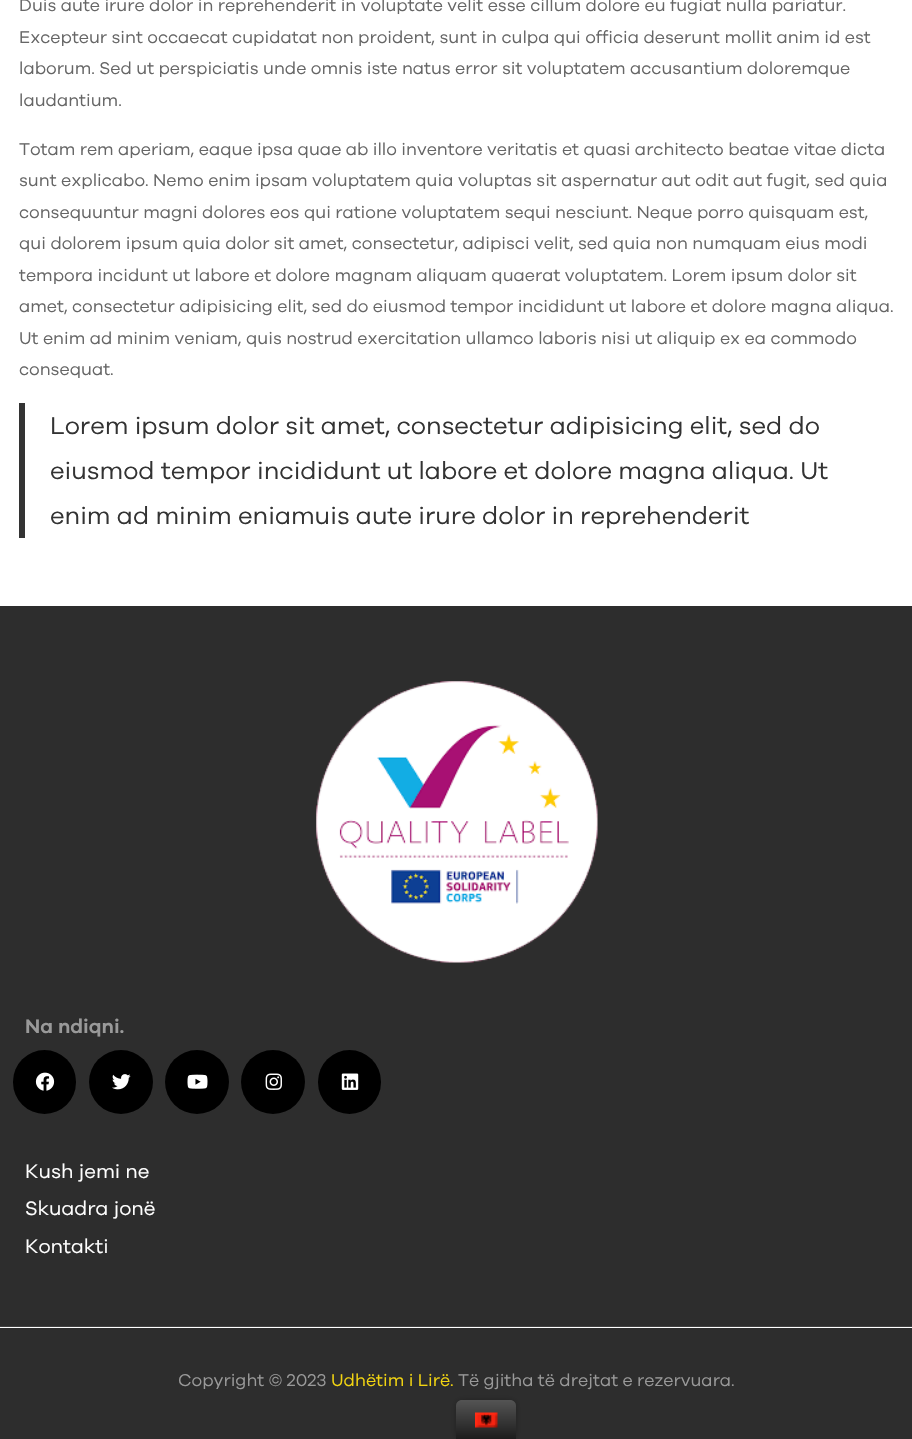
void draw(SkCanvas* canvas) {
    SkPaint paint;
    paint.setAntiAlias(true);
    canvas->clear(0xFFFFFFFF);
    SkFont font1(fontMgr->matchFamilyStyle("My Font", SkFontStyle(500, SkFontStyle::kNormal_Width, SkFontStyle::kUpright_Slant)), 17.5f);
    font1.setSubpixel(true);
    paint.setColor(0xFF666666);
    canvas->drawString("Duis aute irure dolor in reprehenderit in voluptate velit esse cillum dolore eu fugiat nulla pariatur.", 19, 11, font1, paint);
    canvas->drawString("Excepteur sint occaecat cupidatat non proident, sunt in culpa qui officia deserunt mollit anim id est", 19, 43, font1, paint);
    canvas->drawString("laborum. Sed ut perspiciatis unde omnis iste natus error sit voluptatem accusantium doloremque", 19, 74, font1, paint);
    canvas->drawString("laudantium.", 19, 106, font1, paint);
    canvas->drawString("Totam rem aperiam, eaque ipsa quae ab illo inventore veritatis et quasi architecto beatae vitae dicta", 19, 155, font1, paint);
    canvas->drawString("sunt explicabo. Nemo enim ipsam voluptatem quia voluptas sit aspernatur aut odit aut fugit, sed quia", 19, 186, font1, paint);
    canvas->drawString("consequuntur magni dolores eos qui ratione voluptatem sequi nesciunt. Neque porro quisquam est,", 19, 218, font1, paint);
    canvas->drawString("qui dolorem ipsum quia dolor sit amet, consectetur, adipisci velit, sed quia non numquam eius modi", 19, 249, font1, paint);
    canvas->drawString("tempora incidunt ut labore et dolore magnam aliquam quaerat voluptatem. Lorem ipsum dolor sit", 19, 281, font1, paint);
    canvas->drawString("amet, consectetur adipisicing elit, sed do eiusmod tempor incididunt ut labore et dolore magna aliqua.", 19, 312, font1, paint);
    canvas->drawString("Ut enim ad minim veniam, quis nostrud exercitation ullamco laboris nisi ut aliquip ex ea commodo", 19, 344, font1, paint);
    canvas->drawString("consequat.", 19, 375, font1, paint);
    paint.setColor(0xFF333333);
    canvas->drawRect(SkRect::MakeXYWH(19, 403, 6, 135), paint);
    SkFont font2(fontMgr->matchFamilyStyle("My Font", SkFontStyle(500, SkFontStyle::kNormal_Width, SkFontStyle::kUpright_Slant)), 25);
    font2.setSubpixel(true);
    canvas->drawString("Lorem ipsum dolor sit amet, consectetur adipisicing elit, sed do", 50, 434, font2, paint);
    canvas->drawString("eiusmod tempor incididunt ut labore et dolore magna aliqua. Ut", 50, 479, font2, paint);
    canvas->drawString("enim ad minim eniamuis aute irure dolor in reprehenderit", 50, 524, font2, paint);
    paint.setColor(0xFF2D2D2D);
    canvas->drawRect(SkRect::MakeXYWH(0, 606, 912, 720), paint);
    paint.setColor(0xFF424242);
    canvas->drawRect(SkRect::MakeXYWH(0, 1326, 912, 1), paint);
    canvas->drawImageRect(SkImages::DeferredFromEncodedData(SkData::MakeFromFileName("img1.png")), SkRect::MakeXYWH(316, 681, 282, 282), SkSamplingOptions());
    SkFont font3(fontMgr->matchFamilyStyle("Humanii", SkFontStyle(500, SkFontStyle::kNormal_Width, SkFontStyle::kUpright_Slant)), 20);
    font3.setSubpixel(true);
    paint.setColor(0xFF999999);
    canvas->drawString("Na ndiqni.", 25, 1033, font3, paint);
    paint.setColor(0xFF000000);
    canvas->drawRoundRect(SkRect::MakeXYWH(13, 1050, 63, 64), 31.5f, 31.5f, paint);
    canvas->drawImageRect(SkImages::DeferredFromEncodedData(SkData::MakeFromFileName("img2.png")), SkRect::MakeXYWH(35, 1072, 20, 19), SkSamplingOptions());
    canvas->drawCircle(121, 1082, 32, paint);
    canvas->drawImageRect(SkImages::DeferredFromEncodedData(SkData::MakeFromFileName("img3.png")), SkRect::MakeXYWH(112, 1074, 19, 16), SkSamplingOptions());
    canvas->drawCircle(197, 1082, 32, paint);
    canvas->drawImageRect(SkImages::DeferredFromEncodedData(SkData::MakeFromFileName("img4.png")), SkRect::MakeXYWH(187, 1074, 21, 15), SkSamplingOptions());
    canvas->drawCircle(273, 1082, 32, paint);
    canvas->drawImageRect(SkImages::DeferredFromEncodedData(SkData::MakeFromFileName("img5.png")), SkRect::MakeXYWH(265, 1073, 17, 17), SkSamplingOptions());
    canvas->drawRoundRect(SkRect::MakeXYWH(318, 1050, 63, 64), 31.5f, 31.5f, paint);
    canvas->drawImageRect(SkImages::DeferredFromEncodedData(SkData::MakeFromFileName("img6.png")), SkRect::MakeXYWH(341, 1073, 18, 17), SkSamplingOptions());
    SkFont font4(fontMgr->matchFamilyStyle("My Font", SkFontStyle(500, SkFontStyle::kNormal_Width, SkFontStyle::kUpright_Slant)), 20);
    font4.setSubpixel(true);
    paint.setColor(0xFFFFFFFF);
    canvas->drawString("Kush jemi ne", 25, 1178, font4, paint);
    canvas->drawString("Skuadra jonë", 25, 1215, font4, paint);
    canvas->drawString("Kontakti", 25, 1253, font4, paint);
    paint.setColor(0xFF2D2D2D);
    canvas->drawRect(SkRect::MakeXYWH(0, 1328, 912, 111), paint);
    paint.setColor(0xFF999999);
    canvas->drawString("Copyright © 2023", 178, 1386, font1, paint);
    paint.setColor(0xFFF2D411);
    canvas->drawString("Udhëtim i Lirë.", 331, 1386, font1, paint);
    paint.setColor(0xFF999999);
    canvas->drawString("Të gjitha të drejtat e rezervuara.", 458, 1386, font1, paint);
    paint.setColor(0xFF212121);
    paint.setMaskFilter(SkMaskFilter::MakeBlur(kNormal_SkBlurStyle, 3));
    canvas->drawRoundRect(SkRect::MakeXYWH(456, 1400, 60, 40), 6, 6, paint);
    paint.setMaskFilter(nullptr);
    {
        const SkColor colors[] = {0xFF1B1B1B, 0xFF545454};
        const float stops[] = {0, 1};
        const SkPoint ends[] = {{486, 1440}, {486, 1400}};
        paint.setShader(SkGradientShader::MakeLinear(ends, colors, stops, 2, SkTileMode::kClamp));
        paint.setAlpha(255);
    }
    canvas->drawPath(SkPathBuilder().moveTo(462, 1400).lineTo(510, 1400).cubicTo(513.5f, 1400, 516, 1402.5f, 516, 1406).lineTo(516, 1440).lineTo(456, 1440).lineTo(456, 1406).cubicTo(456, 1402.5f, 458.5f, 1400, 462, 1400).close().detach(), paint);
    canvas->drawImageRect(SkImages::DeferredFromEncodedData(SkData::MakeFromFileName("img7.png")), SkRect::MakeXYWH(475, 1412, 23, 16), SkSamplingOptions());
}
